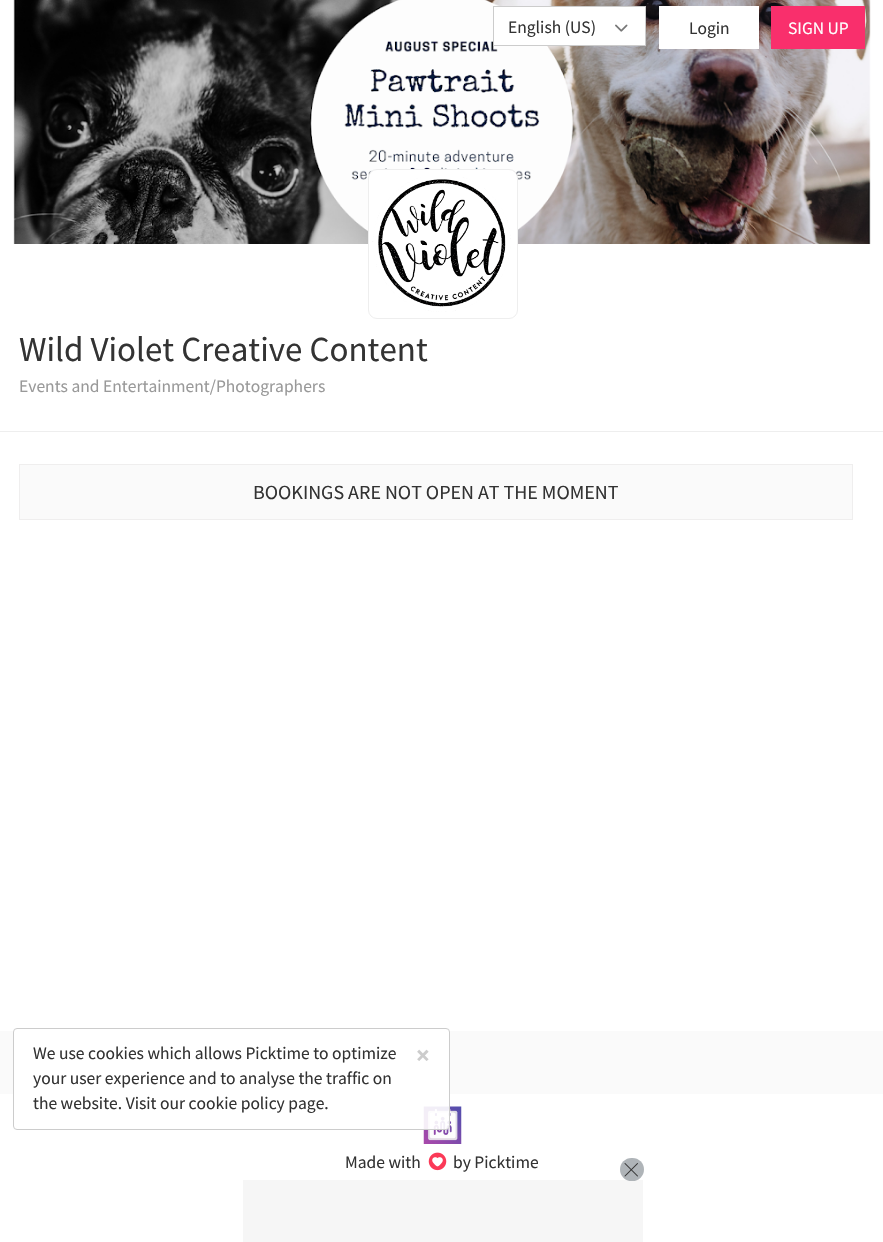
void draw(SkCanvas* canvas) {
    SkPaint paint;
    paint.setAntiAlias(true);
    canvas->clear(0xFFFAFAFA);
    canvas->drawImageRect(SkImages::DeferredFromEncodedData(SkData::MakeFromFileName("img1.png")), SkRect::MakeXYWH(0, 0, 883, 244), SkSamplingOptions());
    paint.setColor(0xFFFFFFFF);
    canvas->drawRoundRect(SkRect::MakeXYWH(493, 6, 153, 40), 4, 4, paint);
    paint.setStyle(SkPaint::kStroke_Style);
    paint.setStrokeWidth(1);
    paint.setColor(0xFFCCCCCC);
    canvas->drawRect(SkRect::MakeXYWH(493.5f, 6.5f, 152, 39), paint);
    SkFont font1(fontMgr->matchFamilyStyle("Source Sans Pro", SkFontStyle::Normal()), 17.5f);
    font1.setSubpixel(true);
    paint.setStyle(SkPaint::kFill_Style);
    paint.setColor(0xFF333333);
    canvas->drawString("English (US)", 508, 33, font1, paint);
    canvas->drawImageRect(SkImages::DeferredFromEncodedData(SkData::MakeFromFileName("img2.png")), SkRect::MakeXYWH(615, 24, 13, 8), SkSamplingOptions());
    paint.setColor(0xFFFFFFFF);
    canvas->drawRect(SkRect::MakeXYWH(659, 6, 100, 43), paint);
    paint.setColor(0xFF333333);
    canvas->drawString("Login", 689, 34, font1, paint);
    paint.setColor(0xFFF92F6C);
    canvas->drawRect(SkRect::MakeXYWH(771, 6, 94, 43), paint);
    paint.setColor(0xFFFFFFFF);
    canvas->drawString("SIGN UP", 788, 34, font1, paint);
    canvas->drawRect(SkRect::MakeXYWH(0, 244, 883, 787), paint);
    canvas->drawRoundRect(SkRect::MakeXYWH(368.5f, 169.5f, 149, 149), 8.5f, 8.5f, paint);
    paint.setStyle(SkPaint::kStroke_Style);
    paint.setColor(0xFFEEEEEE);
    canvas->drawRoundRect(SkRect::MakeXYWH(368.5f, 169.5f, 149, 149), 8.5f, 8.5f, paint);
    canvas->drawImageRect(SkImages::DeferredFromEncodedData(SkData::MakeFromFileName("img3.png")), SkRect::MakeXYWH(372, 177, 139, 135), SkSamplingOptions());
    paint.setStyle(SkPaint::kFill_Style);
    canvas->drawRect(SkRect::MakeXYWH(0, 431, 883, 1), paint);
    SkFont font2(fontMgr->matchFamilyStyle("Source Sans Pro", SkFontStyle::Normal()), 35);
    font2.setSubpixel(true);
    paint.setColor(0xFF333333);
    canvas->drawString("Wild Violet Creative Content", 19, 361, font2, paint);
    paint.setColor(0xFF999999);
    canvas->drawString("Events and Entertainment/Photographers", 19, 392, font1, paint);
    paint.setColor(0xFFFAFAFA);
    canvas->drawRect(SkRect::MakeXYWH(19.5f, 464.5f, 833, 55), paint);
    paint.setStyle(SkPaint::kStroke_Style);
    paint.setColor(0xFFEFEEEE);
    canvas->drawRect(SkRect::MakeXYWH(19.5f, 464.5f, 833, 55), paint);
    SkFont font3(fontMgr->matchFamilyStyle("Source Sans Pro", SkFontStyle::Normal()), 20);
    font3.setSubpixel(true);
    paint.setStyle(SkPaint::kFill_Style);
    paint.setColor(0xFF333333);
    canvas->drawString("BOOKINGS ARE NOT OPEN AT THE MOMENT", 253, 499, font3, paint);
    paint.setColor(0xFFFFFFFF);
    canvas->drawRect(SkRect::MakeXYWH(0, 1094, 883, 148), paint);
    canvas->drawImageRect(SkImages::DeferredFromEncodedData(SkData::MakeFromFileName("img4.png")), SkRect::MakeXYWH(423, 1106, 39, 38), SkSamplingOptions());
    paint.setColor(0xE6FFFFFF);
    canvas->drawRoundRect(SkRect::MakeXYWH(13.5f, 1028.5f, 436, 101), 3.5f, 3.5f, paint);
    paint.setStyle(SkPaint::kStroke_Style);
    paint.setColor(0xFFCCCCCC);
    canvas->drawRoundRect(SkRect::MakeXYWH(13.5f, 1028.5f, 436, 101), 3.5f, 3.5f, paint);
    paint.setStyle(SkPaint::kFill_Style);
    paint.setColor(0xFF333333);
    canvas->drawString("We use cookies which allows Picktime to optimize", 33, 1059, font1, paint);
    SkFont font4(fontMgr->matchFamilyStyle("Source Sans Pro", SkFontStyle::Bold()), 26);
    font4.setSubpixel(true);
    paint.setColor(0xFFCCCCCC);
    canvas->drawString("×", 416, 1064, font4, paint);
    paint.setColor(0xFF333333);
    canvas->drawString("your user experience and to analyse the traffic on", 33, 1084, font1, paint);
    canvas->drawString("the website. Visit our cookie policy page.", 33, 1109, font1, paint);
    canvas->drawString("Made with", 345, 1168, font1, paint);
    canvas->drawImageRect(SkImages::DeferredFromEncodedData(SkData::MakeFromFileName("img5.png")), SkRect::MakeXYWH(428, 1152, 19, 19), SkSamplingOptions());
    canvas->drawString("by Picktime", 453, 1168, font1, paint);
    paint.setColor(0xFFF6F6F6);
    canvas->drawRect(SkRect::MakeXYWH(243, 1180, 400, 62), paint);
    paint.setColor(0xFFAFB4B8);
    canvas->drawRoundRect(SkRect::MakeXYWH(620, 1158, 24, 23), 11.5f, 11.5f, paint);
    canvas->drawImageRect(SkImages::DeferredFromEncodedData(SkData::MakeFromFileName("img6.png")), SkRect::MakeXYWH(624, 1163, 14, 14), SkSamplingOptions());
}
